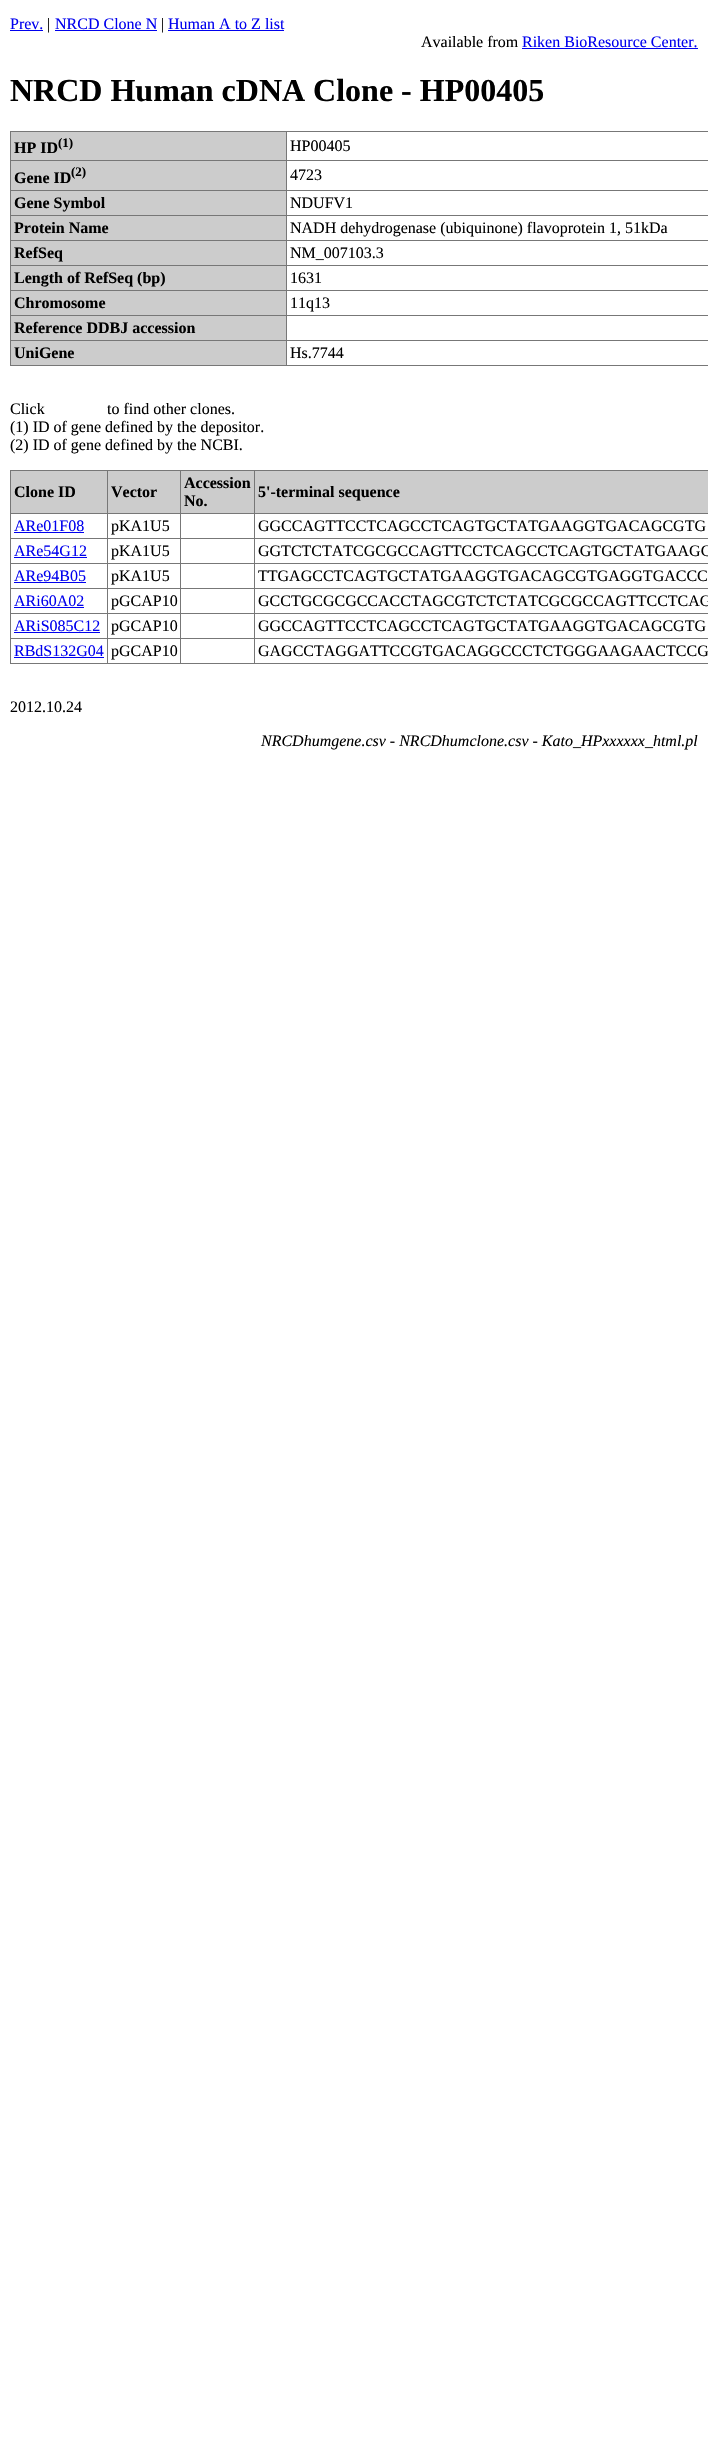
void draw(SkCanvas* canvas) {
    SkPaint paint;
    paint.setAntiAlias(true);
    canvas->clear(0xFFFFFFFF);
    SkFont font1(fontMgr->matchFamilyStyle("Liberation Serif", SkFontStyle::Normal()), 16);
    font1.setSubpixel(true);
    paint.setColor(0xFF0000EE);
    canvas->drawString("Prev.", 10, 29, font1, paint);
    canvas->drawRect(SkRect::MakeXYWH(10, 30, 33, 1), paint);
    paint.setColor(0xFF000000);
    canvas->drawString("|", 47, 29, font1, paint);
    paint.setColor(0xFF0000EE);
    canvas->drawString("NRCD Clone N", 55, 29, font1, paint);
    canvas->drawRect(SkRect::MakeXYWH(55, 30, 102, 1), paint);
    paint.setColor(0xFF000000);
    canvas->drawString("|", 161, 29, font1, paint);
    paint.setColor(0xFF0000EE);
    canvas->drawString("Human A to Z list", 168, 29, font1, paint);
    canvas->drawRect(SkRect::MakeXYWH(168, 30, 116, 1), paint);
    paint.setColor(0xFF000000);
    canvas->drawString("Available from", 421, 47, font1, paint);
    paint.setColor(0xFF0000EE);
    canvas->drawString("Riken BioResource Center.", 522, 47, font1, paint);
    canvas->drawRect(SkRect::MakeXYWH(522, 48, 176, 1), paint);
    SkFont font2(fontMgr->matchFamilyStyle("Liberation Serif", SkFontStyle::Bold()), 32);
    font2.setSubpixel(true);
    paint.setColor(0xFF000000);
    canvas->drawString("NRCD Human cDNA Clone - HP00405", 10, 101, font2, paint);
    paint.setColor(0xFF777777);
    canvas->drawRect(SkRect::MakeXYWH(10, 131, 698, 1), paint);
    canvas->drawRect(SkRect::MakeXYWH(10, 365, 698, 1), paint);
    canvas->drawRect(SkRect::MakeXYWH(10, 131, 1, 235), paint);
    paint.setColor(0xFFCCCCCC);
    canvas->drawRect(SkRect::MakeXYWH(11, 132, 275, 28), paint);
    SkFont font3(fontMgr->matchFamilyStyle("Liberation Serif", SkFontStyle::Bold()), 16);
    font3.setSubpixel(true);
    paint.setColor(0xFF000000);
    canvas->drawString("HP ID", 14, 153, font3, paint);
    SkFont font4(fontMgr->matchFamilyStyle("Liberation Serif", SkFontStyle::Bold()), 13);
    font4.setSubpixel(true);
    canvas->drawString("(1)", 58, 147, font4, paint);
    paint.setColor(0xFF777777);
    canvas->drawRect(SkRect::MakeXYWH(286, 160, 422, 1), paint);
    canvas->drawRect(SkRect::MakeXYWH(286, 190, 422, 1), paint);
    canvas->drawRect(SkRect::MakeXYWH(286, 215, 422, 1), paint);
    canvas->drawRect(SkRect::MakeXYWH(286, 240, 422, 1), paint);
    canvas->drawRect(SkRect::MakeXYWH(286, 265, 422, 1), paint);
    canvas->drawRect(SkRect::MakeXYWH(286, 290, 422, 1), paint);
    canvas->drawRect(SkRect::MakeXYWH(286, 315, 422, 1), paint);
    canvas->drawRect(SkRect::MakeXYWH(286, 340, 422, 1), paint);
    canvas->drawRect(SkRect::MakeXYWH(286, 340, 1, 26), paint);
    canvas->drawRect(SkRect::MakeXYWH(10, 340, 277, 1), paint);
    canvas->drawRect(SkRect::MakeXYWH(286, 315, 1, 26), paint);
    canvas->drawRect(SkRect::MakeXYWH(10, 315, 277, 1), paint);
    canvas->drawRect(SkRect::MakeXYWH(286, 290, 1, 26), paint);
    canvas->drawRect(SkRect::MakeXYWH(10, 290, 277, 1), paint);
    canvas->drawRect(SkRect::MakeXYWH(286, 265, 1, 26), paint);
    canvas->drawRect(SkRect::MakeXYWH(10, 265, 277, 1), paint);
    canvas->drawRect(SkRect::MakeXYWH(286, 240, 1, 26), paint);
    canvas->drawRect(SkRect::MakeXYWH(10, 240, 277, 1), paint);
    canvas->drawRect(SkRect::MakeXYWH(286, 215, 1, 26), paint);
    canvas->drawRect(SkRect::MakeXYWH(10, 215, 277, 1), paint);
    canvas->drawRect(SkRect::MakeXYWH(286, 190, 1, 26), paint);
    canvas->drawRect(SkRect::MakeXYWH(10, 190, 277, 1), paint);
    canvas->drawRect(SkRect::MakeXYWH(286, 160, 1, 31), paint);
    canvas->drawRect(SkRect::MakeXYWH(10, 160, 277, 1), paint);
    canvas->drawRect(SkRect::MakeXYWH(286, 131, 1, 30), paint);
    paint.setColor(0xFF000000);
    canvas->drawString("HP00405", 290, 151, font1, paint);
    paint.setColor(0xFFCCCCCC);
    canvas->drawRect(SkRect::MakeXYWH(11, 161, 275, 29), paint);
    paint.setColor(0xFF000000);
    canvas->drawString("Gene ID", 14, 183, font3, paint);
    canvas->drawString("(2)", 71, 176, font4, paint);
    canvas->drawString("4723", 290, 180, font1, paint);
    paint.setColor(0xFFCCCCCC);
    canvas->drawRect(SkRect::MakeXYWH(11, 191, 275, 24), paint);
    paint.setColor(0xFF000000);
    canvas->drawString("Gene Symbol", 14, 208, font3, paint);
    canvas->drawString("NDUFV1", 290, 208, font1, paint);
    paint.setColor(0xFFCCCCCC);
    canvas->drawRect(SkRect::MakeXYWH(11, 216, 275, 24), paint);
    paint.setColor(0xFF000000);
    canvas->drawString("Protein Name", 14, 233, font3, paint);
    canvas->drawString("NADH dehydrogenase (ubiquinone) flavoprotein 1, 51kDa", 290, 233, font1, paint);
    paint.setColor(0xFFCCCCCC);
    canvas->drawRect(SkRect::MakeXYWH(11, 241, 275, 24), paint);
    paint.setColor(0xFF000000);
    canvas->drawString("RefSeq", 14, 258, font3, paint);
    canvas->drawString("NM_007103.3", 290, 258, font1, paint);
    paint.setColor(0xFFCCCCCC);
    canvas->drawRect(SkRect::MakeXYWH(11, 266, 275, 24), paint);
    paint.setColor(0xFF000000);
    canvas->drawString("Length of RefSeq (bp)", 14, 283, font3, paint);
    canvas->drawString("1631", 290, 283, font1, paint);
    paint.setColor(0xFFCCCCCC);
    canvas->drawRect(SkRect::MakeXYWH(11, 291, 275, 24), paint);
    paint.setColor(0xFF000000);
    canvas->drawString("Chromosome", 14, 308, font3, paint);
    canvas->drawString("11q13", 290, 308, font1, paint);
    paint.setColor(0xFFCCCCCC);
    canvas->drawRect(SkRect::MakeXYWH(11, 316, 275, 24), paint);
    paint.setColor(0xFF000000);
    canvas->drawString("Reference DDBJ accession", 14, 333, font3, paint);
    paint.setColor(0xFFCCCCCC);
    canvas->drawRect(SkRect::MakeXYWH(11, 341, 275, 24), paint);
    paint.setColor(0xFF000000);
    canvas->drawString("UniGene", 14, 358, font3, paint);
    canvas->drawString("Hs.7744", 290, 358, font1, paint);
    canvas->drawString("Click", 10, 414, font1, paint);
    canvas->drawString("to find other clones.", 107, 414, font1, paint);
    canvas->drawString("(1) ID of gene defined by the depositor.", 10, 432, font1, paint);
    canvas->drawString("(2) ID of gene defined by the NCBI.", 10, 450, font1, paint);
    paint.setColor(0xFF777777);
    canvas->drawRect(SkRect::MakeXYWH(10, 470, 698, 1), paint);
    canvas->drawRect(SkRect::MakeXYWH(10, 663, 698, 1), paint);
    canvas->drawRect(SkRect::MakeXYWH(10, 470, 1, 194), paint);
    paint.setColor(0xFFCCCCCC);
    canvas->drawRect(SkRect::MakeXYWH(11, 471, 96, 42), paint);
    paint.setColor(0xFF000000);
    canvas->drawString("Clone ID", 14, 497, font3, paint);
    paint.setColor(0xFFCCCCCC);
    canvas->drawRect(SkRect::MakeXYWH(108, 471, 72, 42), paint);
    paint.setColor(0xFF777777);
    canvas->drawRect(SkRect::MakeXYWH(254, 513, 454, 1), paint);
    canvas->drawRect(SkRect::MakeXYWH(254, 538, 454, 1), paint);
    canvas->drawRect(SkRect::MakeXYWH(254, 563, 454, 1), paint);
    canvas->drawRect(SkRect::MakeXYWH(254, 588, 454, 1), paint);
    canvas->drawRect(SkRect::MakeXYWH(254, 613, 454, 1), paint);
    canvas->drawRect(SkRect::MakeXYWH(254, 638, 454, 1), paint);
    canvas->drawRect(SkRect::MakeXYWH(254, 638, 1, 26), paint);
    canvas->drawRect(SkRect::MakeXYWH(180, 638, 75, 1), paint);
    canvas->drawRect(SkRect::MakeXYWH(254, 613, 1, 26), paint);
    canvas->drawRect(SkRect::MakeXYWH(180, 613, 75, 1), paint);
    canvas->drawRect(SkRect::MakeXYWH(254, 588, 1, 26), paint);
    canvas->drawRect(SkRect::MakeXYWH(180, 588, 75, 1), paint);
    canvas->drawRect(SkRect::MakeXYWH(254, 563, 1, 26), paint);
    canvas->drawRect(SkRect::MakeXYWH(180, 563, 75, 1), paint);
    canvas->drawRect(SkRect::MakeXYWH(254, 538, 1, 26), paint);
    canvas->drawRect(SkRect::MakeXYWH(180, 538, 75, 1), paint);
    canvas->drawRect(SkRect::MakeXYWH(254, 513, 1, 26), paint);
    canvas->drawRect(SkRect::MakeXYWH(180, 513, 75, 1), paint);
    canvas->drawRect(SkRect::MakeXYWH(180, 638, 1, 26), paint);
    canvas->drawRect(SkRect::MakeXYWH(107, 638, 74, 1), paint);
    canvas->drawRect(SkRect::MakeXYWH(180, 613, 1, 26), paint);
    canvas->drawRect(SkRect::MakeXYWH(107, 613, 74, 1), paint);
    canvas->drawRect(SkRect::MakeXYWH(180, 588, 1, 26), paint);
    canvas->drawRect(SkRect::MakeXYWH(107, 588, 74, 1), paint);
    canvas->drawRect(SkRect::MakeXYWH(180, 563, 1, 26), paint);
    canvas->drawRect(SkRect::MakeXYWH(107, 563, 74, 1), paint);
    canvas->drawRect(SkRect::MakeXYWH(180, 538, 1, 26), paint);
    canvas->drawRect(SkRect::MakeXYWH(107, 538, 74, 1), paint);
    canvas->drawRect(SkRect::MakeXYWH(180, 513, 1, 26), paint);
    canvas->drawRect(SkRect::MakeXYWH(107, 513, 74, 1), paint);
    canvas->drawRect(SkRect::MakeXYWH(107, 638, 1, 26), paint);
    canvas->drawRect(SkRect::MakeXYWH(10, 638, 98, 1), paint);
    canvas->drawRect(SkRect::MakeXYWH(107, 613, 1, 26), paint);
    canvas->drawRect(SkRect::MakeXYWH(10, 613, 98, 1), paint);
    canvas->drawRect(SkRect::MakeXYWH(107, 588, 1, 26), paint);
    canvas->drawRect(SkRect::MakeXYWH(10, 588, 98, 1), paint);
    canvas->drawRect(SkRect::MakeXYWH(107, 563, 1, 26), paint);
    canvas->drawRect(SkRect::MakeXYWH(10, 563, 98, 1), paint);
    canvas->drawRect(SkRect::MakeXYWH(107, 538, 1, 26), paint);
    canvas->drawRect(SkRect::MakeXYWH(10, 538, 98, 1), paint);
    canvas->drawRect(SkRect::MakeXYWH(107, 513, 1, 26), paint);
    canvas->drawRect(SkRect::MakeXYWH(10, 513, 98, 1), paint);
    canvas->drawRect(SkRect::MakeXYWH(107, 470, 1, 44), paint);
    paint.setColor(0xFF000000);
    canvas->drawString("Vector", 111, 497, font3, paint);
    paint.setColor(0xFFCCCCCC);
    canvas->drawRect(SkRect::MakeXYWH(181, 471, 73, 42), paint);
    paint.setColor(0xFF777777);
    canvas->drawRect(SkRect::MakeXYWH(180, 470, 1, 44), paint);
    paint.setColor(0xFF000000);
    canvas->drawString("Accession", 184, 488, font3, paint);
    canvas->drawString("No.", 184, 506, font3, paint);
    paint.setColor(0xFFCCCCCC);
    canvas->drawRect(SkRect::MakeXYWH(255, 471, 453, 42), paint);
    paint.setColor(0xFF777777);
    canvas->drawRect(SkRect::MakeXYWH(254, 470, 1, 44), paint);
    paint.setColor(0xFF000000);
    canvas->drawString("5'-terminal sequence", 258, 497, font3, paint);
    paint.setColor(0xFF0000EE);
    canvas->drawString("ARe01F08", 14, 531, font1, paint);
    canvas->drawRect(SkRect::MakeXYWH(14, 532, 70, 1), paint);
    paint.setColor(0xFF000000);
    canvas->drawString("pKA1U5", 111, 531, font1, paint);
    canvas->drawString("GGCCAGTTCCTCAGCCTCAGTGCTATGAAGGTGACAGCGTG", 258, 531, font1, paint);
    paint.setColor(0xFF0000EE);
    canvas->drawString("ARe54G12", 14, 556, font1, paint);
    canvas->drawRect(SkRect::MakeXYWH(14, 557, 73, 1), paint);
    paint.setColor(0xFF000000);
    canvas->drawString("pKA1U5", 111, 556, font1, paint);
    canvas->drawString("GGTCTCTATCGCGCCAGTTCCTCAGCCTCAGTGCTATGAAGG", 258, 556, font1, paint);
    paint.setColor(0xFF0000EE);
    canvas->drawString("ARe94B05", 14, 581, font1, paint);
    canvas->drawRect(SkRect::MakeXYWH(14, 582, 72, 1), paint);
    paint.setColor(0xFF000000);
    canvas->drawString("pKA1U5", 111, 581, font1, paint);
    canvas->drawString("TTGAGCCTCAGTGCTATGAAGGTGACAGCGTGAGGTGACCC", 258, 581, font1, paint);
    paint.setColor(0xFF0000EE);
    canvas->drawString("ARi60A02", 14, 606, font1, paint);
    canvas->drawRect(SkRect::MakeXYWH(14, 607, 70, 1), paint);
    paint.setColor(0xFF000000);
    canvas->drawString("pGCAP10", 111, 606, font1, paint);
    canvas->drawString("GCCTGCGCGCCACCTAGCGTCTCTATCGCGCCAGTTCCTCAG", 258, 606, font1, paint);
    paint.setColor(0xFF0000EE);
    canvas->drawString("ARiS085C12", 14, 631, font1, paint);
    canvas->drawRect(SkRect::MakeXYWH(14, 632, 86, 1), paint);
    paint.setColor(0xFF000000);
    canvas->drawString("pGCAP10", 111, 631, font1, paint);
    canvas->drawString("GGCCAGTTCCTCAGCCTCAGTGCTATGAAGGTGACAGCGTG", 258, 631, font1, paint);
    paint.setColor(0xFF0000EE);
    canvas->drawString("RBdS132G04", 14, 656, font1, paint);
    canvas->drawRect(SkRect::MakeXYWH(14, 657, 90, 1), paint);
    paint.setColor(0xFF000000);
    canvas->drawString("pGCAP10", 111, 656, font1, paint);
    canvas->drawString("GAGCCTAGGATTCCGTGACAGGCCCTCTGGGAAGAACTCCG", 258, 656, font1, paint);
    canvas->drawString("2012.10.24", 10, 712, font1, paint);
    SkFont font5(fontMgr->matchFamilyStyle("Liberation Serif", SkFontStyle::Italic()), 16);
    font5.setSubpixel(true);
    canvas->drawString("NRCDhumgene.csv - NRCDhumclone.csv - Kato_HPxxxxxx_html.pl", 261, 746, font5, paint);
}
